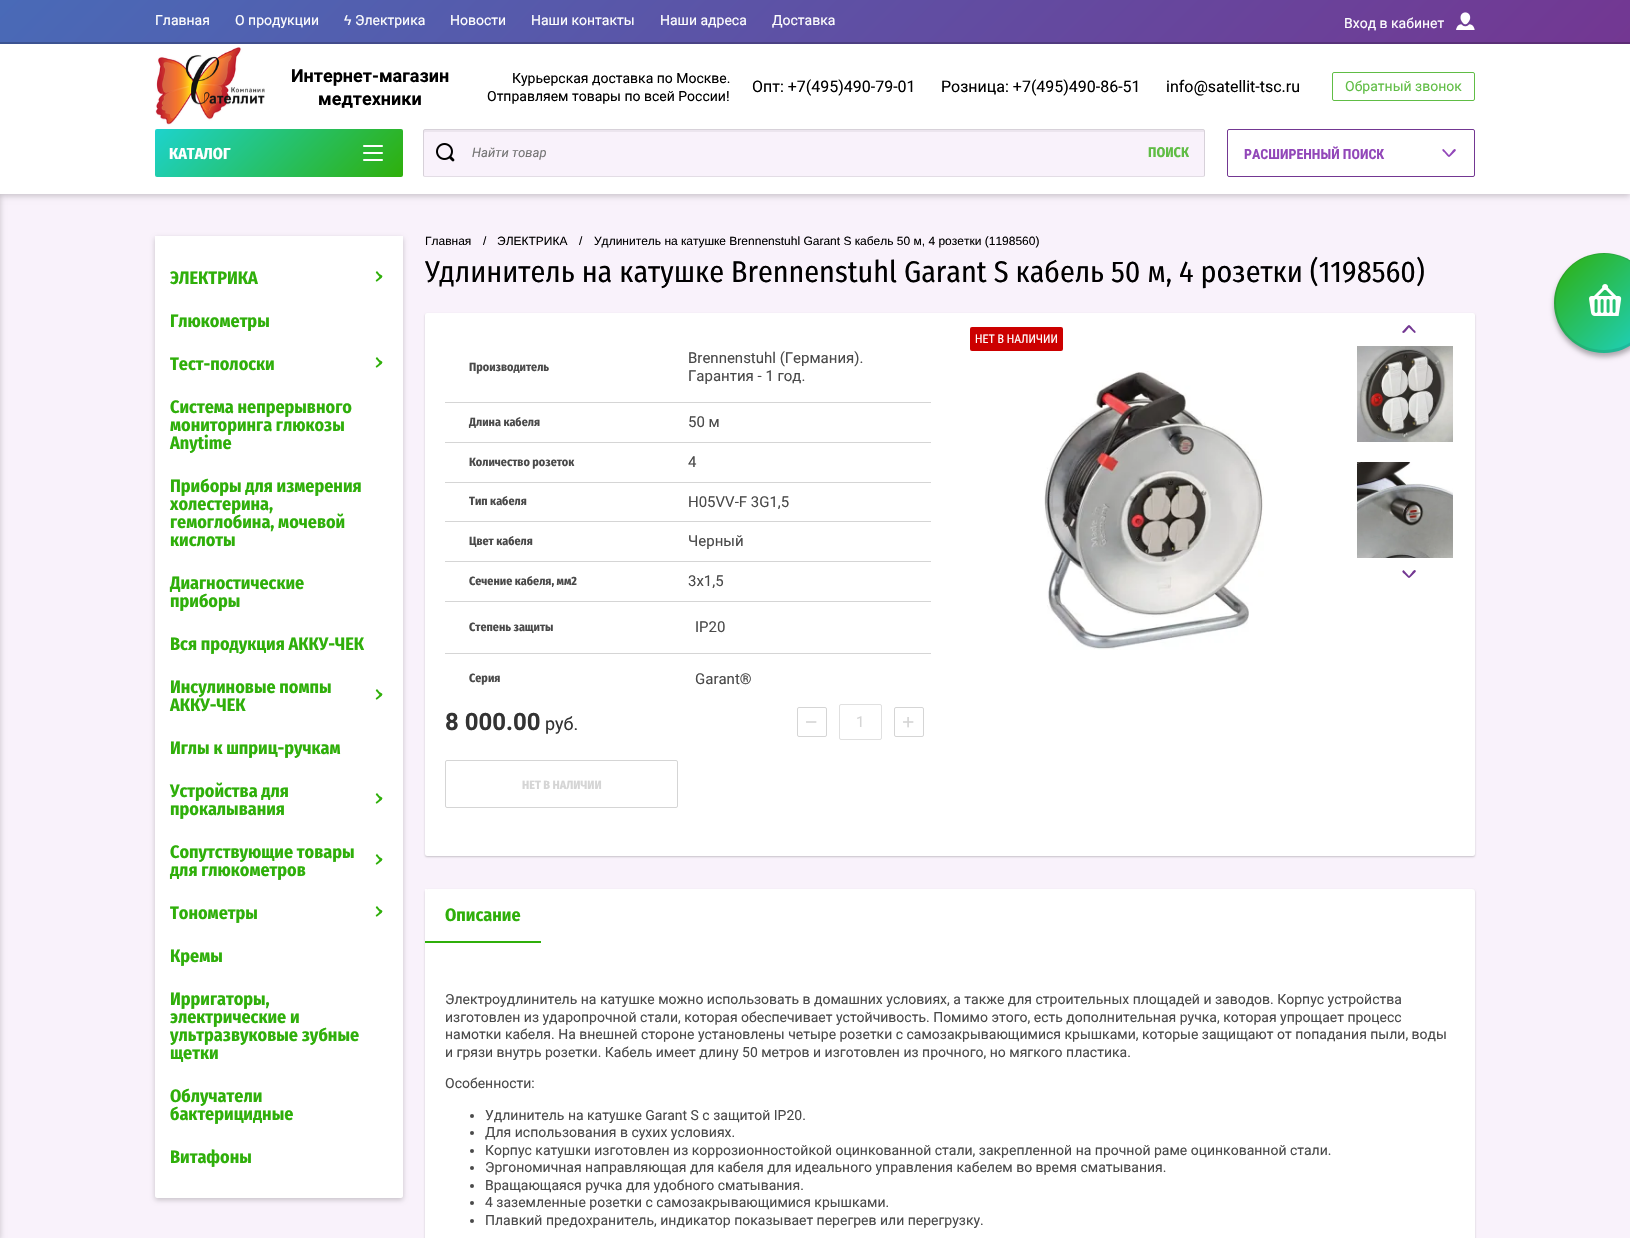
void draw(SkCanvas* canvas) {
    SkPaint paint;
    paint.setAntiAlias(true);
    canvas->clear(0xFFF9F2FB);
    paint.setColor(0x33000000);
    paint.setMaskFilter(SkMaskFilter::MakeBlur(kNormal_SkBlurStyle, 3));
    canvas->drawRect(SkRect::MakeXYWH(-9, 2, 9, 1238), paint);
    paint.setMaskFilter(nullptr);
    paint.setMaskFilter(SkMaskFilter::MakeBlur(kNormal_SkBlurStyle, 3));
    canvas->drawRect(SkRect::MakeXYWH(0, 2, 1630, 194), paint);
    paint.setMaskFilter(nullptr);
    paint.setColor(0xFFFFFFFF);
    canvas->drawRect(SkRect::MakeXYWH(0, 44, 1630, 150), paint);
    {
        const SkColor colors[] = {0xFF496AB7, 0xFF733792};
        const float stops[] = {0, 1};
        const SkPoint ends[] = {{396, -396}, {1234, 440}};
        paint.setShader(SkGradientShader::MakeLinear(ends, colors, stops, 2, SkTileMode::kClamp));
        paint.setAlpha(255);
    }
    canvas->drawRect(SkRect::MakeXYWH(0, 0, 1630, 44), paint);
    paint.setShader(nullptr);
    paint.setColor(0x33000000);
    canvas->drawRect(SkRect::MakeXYWH(0, 42, 1630, 2), paint);
    SkFont font1(fontMgr->matchFamilyStyle("Roboto", SkFontStyle::Normal()), 14);
    font1.setSubpixel(true);
    paint.setColor(0xFFFFFFFF);
    canvas->drawString("Главная", 155, 25, font1, paint);
    canvas->drawString("О продукции", 235, 25, font1, paint);
    SkFont font2(fontMgr->matchFamilyStyle("Liberation Sans", SkFontStyle::Normal()), 14);
    font2.setSubpixel(true);
    canvas->drawString("ϟ", 344, 25, font2, paint);
    canvas->drawString("Электрика", 355, 25, font1, paint);
    canvas->drawString("Новости", 450, 25, font1, paint);
    canvas->drawString("Наши контакты", 531, 25, font1, paint);
    canvas->drawString("Наши адреса", 660, 25, font1, paint);
    canvas->drawString("Доставка", 772, 25, font1, paint);
    canvas->drawImageRect(SkImages::DeferredFromEncodedData(SkData::MakeFromFileName("img1.png")), SkRect::MakeXYWH(1456, 12, 19, 18), SkSamplingOptions());
    canvas->drawString("Вход в кабинет", 1344, 28, font1, paint);
    canvas->drawImageRect(SkImages::DeferredFromEncodedData(SkData::MakeFromFileName("img2.png")), SkRect::MakeXYWH(155, 47, 110, 78), SkSamplingOptions());
    SkFont font3(fontMgr->matchFamilyStyle("Roboto", SkFontStyle::Bold()), 18);
    font3.setSubpixel(true);
    paint.setColor(0xFF000000);
    canvas->drawString("Интернет-магазин", 291, 82, font3, paint);
    canvas->drawString("медтехники", 318, 105, font3, paint);
    canvas->drawString("Курьерская доставка по Москве.", 512, 83, font1, paint);
    canvas->drawString("Отправляем товары по всей России!", 487, 101, font1, paint);
    SkFont font4(fontMgr->matchFamilyStyle("Roboto", SkFontStyle::Normal()), 16);
    font4.setSubpixel(true);
    canvas->drawString("Опт: +7(495)490-79-01", 752, 92, font4, paint);
    canvas->drawString("Розница: +7(495)490-86-51", 941, 92, font4, paint);
    canvas->drawString("info@satellit-tsc.ru", 1166, 92, font4, paint);
    paint.setStyle(SkPaint::kStroke_Style);
    paint.setStrokeWidth(1);
    paint.setColor(0xFF60BD45);
    canvas->drawRoundRect(SkRect::MakeXYWH(1332.5f, 72.5f, 142, 28), 1.5f, 1.5f, paint);
    paint.setStyle(SkPaint::kFill_Style);
    canvas->drawString("Обратный звонок", 1345, 91, font1, paint);
    {
        const SkColor colors[] = {0xFF1DD3CD, 0xFF2FAF0A};
        const float stops[] = {0, 1};
        const SkPoint ends[] = {{205, 79}, {353, 227}};
        paint.setShader(SkGradientShader::MakeLinear(ends, colors, stops, 2, SkTileMode::kClamp));
        paint.setAlpha(255);
    }
    canvas->drawRoundRect(SkRect::MakeXYWH(155, 129, 248, 48), 2, 2, paint);
    SkFont font5(fontMgr->matchFamilyStyle("Fira Sans Condensed", SkFontStyle::Bold()), 16);
    font5.setSubpixel(true);
    paint.setShader(nullptr);
    paint.setColor(0xFFFFFFFF);
    canvas->drawString("КАТАЛОГ", 169, 159, font5, paint);
    canvas->drawImageRect(SkImages::DeferredFromEncodedData(SkData::MakeFromFileName("img3.png")), SkRect::MakeXYWH(363, 145, 20, 16), SkSamplingOptions());
    paint.setColor(0xFFF9F2FB);
    canvas->drawRoundRect(SkRect::MakeXYWH(423.5f, 129.5f, 781, 47), 1.5f, 1.5f, paint);
    paint.setStyle(SkPaint::kStroke_Style);
    paint.setColor(0xFFE3DDE5);
    canvas->drawRoundRect(SkRect::MakeXYWH(423.5f, 129.5f, 781, 47), 1.5f, 1.5f, paint);
    paint.setStyle(SkPaint::kFill_Style);
    paint.setColor(0x0D000000);
    canvas->drawPath(SkPathBuilder().moveTo(425, 132).lineTo(1204, 132).lineTo(1204, 142).lineTo(1204, 177).cubicTo(1205, 176, 1205, 176, 1205, 175).lineTo(1205, 131).cubicTo(1205, 130, 1204, 129, 1203, 129).lineTo(425, 129).cubicTo(424, 129, 423, 130, 423, 131).lineTo(423, 175).cubicTo(423, 176, 423, 176, 424, 177).lineTo(424, 133).close().detach(), paint);
    canvas->drawImageRect(SkImages::DeferredFromEncodedData(SkData::MakeFromFileName("img4.png")), SkRect::MakeXYWH(436, 143, 19, 19), SkSamplingOptions());
    SkFont font6(fontMgr->matchFamilyStyle("Roboto", SkFontStyle::Italic()), 13);
    font6.setSubpixel(true);
    paint.setColor(0xFF757575);
    canvas->drawString("Найти товар", 472, 157, font6, paint);
    SkFont font7(fontMgr->matchFamilyStyle("Fira Sans Condensed", SkFontStyle::Bold()), 14);
    font7.setSubpixel(true);
    paint.setColor(0xFF60BD45);
    canvas->drawString("ПОИСК", 1148, 157, font7, paint);
    paint.setStyle(SkPaint::kStroke_Style);
    paint.setColor(0xFF733792);
    canvas->drawRoundRect(SkRect::MakeXYWH(1227.5f, 129.5f, 247, 47), 1.5f, 1.5f, paint);
    SkFont font8(fontMgr->matchFamilyStyle("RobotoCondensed", SkFontStyle::Bold()), 14);
    font8.setSubpixel(true);
    paint.setStyle(SkPaint::kFill_Style);
    paint.setColor(0xFF9247B9);
    canvas->drawString("РАСШИРЕННЫЙ ПОИСК", 1244, 159, font8, paint);
    canvas->drawPath(SkPathBuilder().moveTo(1455.5f, 151).lineTo(1451, 155.5f).cubicTo(1449, 158, 1447.5f, 156.5f, 1449.5f, 154.5f).lineTo(1452, 151.5f).cubicTo(1452.5f, 151, 1454.5f, 148, 1455.5f, 149.5f).cubicTo(1456, 150, 1456, 150.5f, 1455.5f, 151).close().detach(), paint);
    canvas->drawPath(SkPathBuilder().moveTo(1444, 149.5f).lineTo(1448.5f, 154.5f).cubicTo(1450.5f, 156.5f, 1449, 158, 1447, 155.5f).lineTo(1444.5f, 152.5f).cubicTo(1444, 152, 1441, 150, 1443, 149).cubicTo(1443, 149, 1443.5f, 149, 1444, 149.5f).close().detach(), paint);
    paint.setColor(0x33000000);
    paint.setMaskFilter(SkMaskFilter::MakeBlur(kNormal_SkBlurStyle, 2.5f));
    canvas->drawRoundRect(SkRect::MakeXYWH(155, 238, 248, 962), 2, 2, paint);
    paint.setMaskFilter(nullptr);
    paint.setColor(0xFFFFFFFF);
    canvas->drawPath(SkPathBuilder().moveTo(155, 236).lineTo(403, 236).lineTo(403, 1196).cubicTo(403, 1197, 402, 1198, 401, 1198).lineTo(157, 1198).cubicTo(156, 1198, 155, 1197, 155, 1196).close().detach(), paint);
    SkFont font9(fontMgr->matchFamilyStyle("Fira Sans Condensed", SkFontStyle::Bold()), 18);
    font9.setSubpixel(true);
    paint.setColor(0xFF2FAF0A);
    canvas->drawString("ЭЛЕКТРИКА", 170, 284, font9, paint);
    canvas->drawPath(SkPathBuilder().moveTo(377.5f, 271.5f).lineTo(379.5f, 274).cubicTo(380.5f, 274.5f, 383, 276, 382, 277).cubicTo(381, 279, 378, 275, 377.5f, 274.5f).lineTo(376, 273).cubicTo(375.5f, 272, 376.5f, 271, 377.5f, 271.5f).close().detach(), paint);
    canvas->drawPath(SkPathBuilder().moveTo(376, 280).lineTo(378.5f, 278).cubicTo(379, 277, 380.5f, 275, 382, 275.5f).cubicTo(383.5f, 277, 379.5f, 279.5f, 379, 280).lineTo(377, 281.5f).cubicTo(376, 282, 375.5f, 280.5f, 376, 280).close().detach(), paint);
    canvas->drawString("Глюкометры", 170, 327, font9, paint);
    canvas->drawString("Тест-полоски", 170, 370, font9, paint);
    canvas->drawPath(SkPathBuilder().moveTo(377.5f, 357.5f).lineTo(379.5f, 360).cubicTo(380.5f, 360.5f, 383, 362, 382, 363).cubicTo(381, 365, 378, 361, 377.5f, 360.5f).lineTo(376, 359).cubicTo(375.5f, 358, 376.5f, 357, 377.5f, 357.5f).close().detach(), paint);
    canvas->drawPath(SkPathBuilder().moveTo(376, 366).lineTo(378.5f, 364).cubicTo(379, 363, 380.5f, 361, 382, 361.5f).cubicTo(383.5f, 363, 379.5f, 365.5f, 379, 366).lineTo(377, 367.5f).cubicTo(376, 368, 375.5f, 366.5f, 376, 366).close().detach(), paint);
    canvas->drawString("Система непрерывного", 170, 413, font9, paint);
    canvas->drawString("мониторинга глюкозы", 170, 431, font9, paint);
    canvas->drawString("Anytime", 170, 449, font9, paint);
    canvas->drawString("Приборы для измерения", 170, 492, font9, paint);
    canvas->drawString("холестерина,", 170, 510, font9, paint);
    canvas->drawString("гемоглобина, мочевой", 170, 528, font9, paint);
    canvas->drawString("кислоты", 170, 546, font9, paint);
    canvas->drawString("Диагностические", 170, 589, font9, paint);
    canvas->drawString("приборы", 170, 607, font9, paint);
    canvas->drawString("Вся продукция АККУ-ЧЕК", 170, 650, font9, paint);
    canvas->drawString("Инсулиновые помпы", 170, 693, font9, paint);
    canvas->drawPath(SkPathBuilder().moveTo(377.5f, 689.5f).lineTo(379.5f, 692).cubicTo(380.5f, 692.5f, 383, 694, 382, 695).cubicTo(381, 697, 378, 693, 377.5f, 692.5f).lineTo(376, 691).cubicTo(375.5f, 690, 376.5f, 689, 377.5f, 689.5f).close().detach(), paint);
    canvas->drawPath(SkPathBuilder().moveTo(376, 698).lineTo(378.5f, 696).cubicTo(379, 695, 380.5f, 693, 382, 693.5f).cubicTo(383.5f, 695, 379.5f, 697.5f, 379, 698).lineTo(377, 699.5f).cubicTo(376, 700, 375.5f, 698.5f, 376, 698).close().detach(), paint);
    canvas->drawString("АККУ-ЧЕК", 170, 711, font9, paint);
    canvas->drawString("Иглы к шприц-ручкам", 170, 754, font9, paint);
    canvas->drawString("Устройства для", 170, 797, font9, paint);
    canvas->drawPath(SkPathBuilder().moveTo(377.5f, 793.5f).lineTo(379.5f, 796).cubicTo(380.5f, 796.5f, 383, 798, 382, 799).cubicTo(381, 801, 378, 797, 377.5f, 796.5f).lineTo(376, 795).cubicTo(375.5f, 794, 376.5f, 793, 377.5f, 793.5f).close().detach(), paint);
    canvas->drawPath(SkPathBuilder().moveTo(376, 802).lineTo(378.5f, 800).cubicTo(379, 799, 380.5f, 797, 382, 797.5f).cubicTo(383.5f, 799, 379.5f, 801.5f, 379, 802).lineTo(377, 803.5f).cubicTo(376, 804, 375.5f, 802.5f, 376, 802).close().detach(), paint);
    canvas->drawString("прокалывания", 170, 815, font9, paint);
    canvas->drawString("Сопутствующие товары", 170, 858, font9, paint);
    canvas->drawPath(SkPathBuilder().moveTo(377.5f, 854.5f).lineTo(379.5f, 857).cubicTo(380.5f, 857.5f, 383, 859, 382, 860).cubicTo(381, 862, 378, 858, 377.5f, 857.5f).lineTo(376, 856).cubicTo(375.5f, 855, 376.5f, 854, 377.5f, 854.5f).close().detach(), paint);
    canvas->drawPath(SkPathBuilder().moveTo(376, 863).lineTo(378.5f, 861).cubicTo(379, 860, 380.5f, 858, 382, 858.5f).cubicTo(383.5f, 860, 379.5f, 862.5f, 379, 863).lineTo(377, 864.5f).cubicTo(376, 865, 375.5f, 863.5f, 376, 863).close().detach(), paint);
    canvas->drawString("для глюкометров", 170, 876, font9, paint);
    canvas->drawString("Тонометры", 170, 919, font9, paint);
    canvas->drawPath(SkPathBuilder().moveTo(377.5f, 906.5f).lineTo(379.5f, 909).cubicTo(380.5f, 909.5f, 383, 911, 382, 912).cubicTo(381, 914, 378, 910, 377.5f, 909.5f).lineTo(376, 908).cubicTo(375.5f, 907, 376.5f, 906, 377.5f, 906.5f).close().detach(), paint);
    canvas->drawPath(SkPathBuilder().moveTo(376, 915).lineTo(378.5f, 913).cubicTo(379, 912, 380.5f, 910, 382, 910.5f).cubicTo(383.5f, 912, 379.5f, 914.5f, 379, 915).lineTo(377, 916.5f).cubicTo(376, 917, 375.5f, 915.5f, 376, 915).close().detach(), paint);
    canvas->drawString("Кремы", 170, 962, font9, paint);
    canvas->drawString("Ирригаторы,", 170, 1005, font9, paint);
    canvas->drawString("электрические и", 170, 1023, font9, paint);
    canvas->drawString("ультразвуковые зубные", 170, 1041, font9, paint);
    canvas->drawString("щетки", 170, 1059, font9, paint);
    canvas->drawString("Облучатели", 170, 1102, font9, paint);
    canvas->drawString("бактерицидные", 170, 1120, font9, paint);
    canvas->drawString("Витафоны", 170, 1163, font9, paint);
    SkFont font10(fontMgr->matchFamilyStyle("Liberation Sans", SkFontStyle::Normal()), 12);
    font10.setSubpixel(true);
    paint.setColor(0xFF000000);
    canvas->drawString("Главная", 425, 245, font10, paint);
    canvas->drawString("/", 483, 245, font10, paint);
    canvas->drawString("ЭЛЕКТРИКА", 497, 245, font10, paint);
    canvas->drawString("/", 579, 245, font10, paint);
    canvas->drawString("Удлинитель на катушке Brennenstuhl Garant S кабель 50 м, 4 розетки (1198560)", 594, 245, font10, paint);
    SkFont font11(fontMgr->matchFamilyStyle("Fira Sans Condensed", SkFontStyle::Normal()), 30);
    font11.setSubpixel(true);
    canvas->drawString("Удлинитель на катушке Brennenstuhl Garant S кабель 50 м, 4 розетки (1198560)", 425, 282, font11, paint);
    paint.setColor(0x33000000);
    paint.setMaskFilter(SkMaskFilter::MakeBlur(kNormal_SkBlurStyle, 1));
    canvas->drawRoundRect(SkRect::MakeXYWH(425, 314, 1050, 543), 2, 2, paint);
    paint.setMaskFilter(nullptr);
    paint.setColor(0xFFFFFFFF);
    canvas->drawRoundRect(SkRect::MakeXYWH(425, 313, 1050, 543), 2, 2, paint);
    paint.setColor(0xFFCC0000);
    canvas->drawRoundRect(SkRect::MakeXYWH(970, 327, 93, 24), 2, 2, paint);
    SkFont font12(fontMgr->matchFamilyStyle("RobotoCondensed", SkFontStyle::Normal()), 12);
    font12.setSubpixel(true);
    paint.setColor(0xFFFFFFFF);
    canvas->drawString("НЕТ В НАЛИЧИИ", 975, 343, font12, paint);
    canvas->drawImageRect(SkImages::DeferredFromEncodedData(SkData::MakeFromFileName("img5.png")), SkRect::MakeXYWH(1044, 371, 220, 279), SkSamplingOptions());
    paint.setColor(0xFF733792);
    canvas->drawPath(SkPathBuilder().moveTo(1402.5f, 331.5f).lineTo(1407, 326.5f).cubicTo(1409, 324, 1410.5f, 325.5f, 1408.5f, 328).lineTo(1406, 331).cubicTo(1405.5f, 331.5f, 1403.5f, 334, 1402.5f, 332.5f).cubicTo(1402, 332, 1402, 331.5f, 1402.5f, 331.5f).close().detach(), paint);
    canvas->drawPath(SkPathBuilder().moveTo(1414, 332.5f).lineTo(1409.5f, 328).cubicTo(1407.5f, 325.5f, 1409, 324, 1411, 326.5f).lineTo(1413.5f, 329.5f).cubicTo(1414, 330, 1417, 332, 1415, 333).cubicTo(1415, 333, 1414.5f, 333, 1414, 332.5f).close().detach(), paint);
    canvas->drawPath(SkPathBuilder().moveTo(1415.5f, 572).lineTo(1411, 576.5f).cubicTo(1409, 579, 1407.5f, 577.5f, 1409.5f, 575.5f).lineTo(1412, 572.5f).cubicTo(1412.5f, 572, 1414.5f, 569, 1415.5f, 570.5f).cubicTo(1416, 571, 1416, 571.5f, 1415.5f, 572).close().detach(), paint);
    canvas->drawPath(SkPathBuilder().moveTo(1404, 570.5f).lineTo(1408.5f, 575.5f).cubicTo(1410.5f, 577.5f, 1409, 579, 1407, 576.5f).lineTo(1404.5f, 574).cubicTo(1404, 573.5f, 1401, 571.5f, 1403, 570.5f).cubicTo(1403, 570, 1403.5f, 570, 1404, 570.5f).close().detach(), paint);
    canvas->drawImageRect(SkImages::DeferredFromEncodedData(SkData::MakeFromFileName("img6.png")), SkRect::MakeXYWH(1357, 346, 96, 96), SkSamplingOptions());
    canvas->drawImageRect(SkImages::DeferredFromEncodedData(SkData::MakeFromFileName("img7.png")), SkRect::MakeXYWH(1357, 462, 96, 96), SkSamplingOptions());
    SkFont font13(fontMgr->matchFamilyStyle("Fira Sans Condensed", SkFontStyle::Bold()), 12);
    font13.setSubpixel(true);
    paint.setColor(0xFF4A4A4A);
    canvas->drawString("Производитель", 469, 371, font13, paint);
    SkFont font14(fontMgr->matchFamilyStyle("Roboto", SkFontStyle::Normal()), 15);
    font14.setSubpixel(true);
    canvas->drawString("Brennenstuhl (Германия).", 688, 363, font14, paint);
    canvas->drawString("Гарантия - 1 год.", 688, 381, font14, paint);
    paint.setColor(0xFFD5D5D5);
    canvas->drawRect(SkRect::MakeXYWH(445, 402, 486, 1), paint);
    paint.setColor(0xFF4A4A4A);
    canvas->drawString("Длина кабеля", 469, 426, font13, paint);
    canvas->drawString("50 м", 688, 427, font14, paint);
    paint.setColor(0xFFD5D5D5);
    canvas->drawRect(SkRect::MakeXYWH(445, 442, 486, 1), paint);
    paint.setColor(0xFF4A4A4A);
    canvas->drawString("Количество розеток", 469, 466, font13, paint);
    canvas->drawString("4", 688, 467, font14, paint);
    paint.setColor(0xFFD5D5D5);
    canvas->drawRect(SkRect::MakeXYWH(445, 482, 486, 1), paint);
    paint.setColor(0xFF4A4A4A);
    canvas->drawString("Тип кабеля", 469, 505, font13, paint);
    canvas->drawString("H05VV-F 3G1,5", 688, 507, font14, paint);
    paint.setColor(0xFFD5D5D5);
    canvas->drawRect(SkRect::MakeXYWH(445, 521, 486, 1), paint);
    paint.setColor(0xFF4A4A4A);
    canvas->drawString("Цвет кабеля", 469, 545, font13, paint);
    canvas->drawString("Черный", 688, 546, font14, paint);
    paint.setColor(0xFFD5D5D5);
    canvas->drawRect(SkRect::MakeXYWH(445, 561, 486, 1), paint);
    paint.setColor(0xFF4A4A4A);
    canvas->drawString("Сечение кабеля, мм2", 469, 585, font13, paint);
    canvas->drawString("3х1,5", 688, 586, font14, paint);
    paint.setColor(0xFFD5D5D5);
    canvas->drawRect(SkRect::MakeXYWH(445, 601, 486, 1), paint);
    paint.setColor(0xFF4A4A4A);
    canvas->drawString("Степень защиты", 469, 631, font13, paint);
    canvas->drawString("IP20", 695, 632, font14, paint);
    paint.setColor(0xFFD5D5D5);
    canvas->drawRect(SkRect::MakeXYWH(445, 653, 486, 1), paint);
    paint.setColor(0xFF4A4A4A);
    canvas->drawString("Серия", 469, 682, font13, paint);
    canvas->drawString("Garant®", 695, 684, font14, paint);
    SkFont font15(fontMgr->matchFamilyStyle("Roboto", SkFontStyle::Bold()), 24);
    font15.setSubpixel(true);
    paint.setColor(0xFF333333);
    canvas->drawString("8 000.00", 445, 730, font15, paint);
    SkFont font16(fontMgr->matchFamilyStyle("Roboto", SkFontStyle::Normal()), 18);
    font16.setSubpixel(true);
    canvas->drawString("руб.", 545, 730, font16, paint);
    paint.setStyle(SkPaint::kStroke_Style);
    paint.setColor(0xFFD5D5D5);
    canvas->drawRoundRect(SkRect::MakeXYWH(797.5f, 707.5f, 29, 29), 1.5f, 1.5f, paint);
    SkFont font17(fontMgr->matchFamilyStyle("Liberation Sans", SkFontStyle::Normal()), 21);
    font17.setSubpixel(true);
    paint.setStyle(SkPaint::kFill_Style);
    canvas->drawString("−", 805, 729, font17, paint);
    paint.setStyle(SkPaint::kStroke_Style);
    paint.setColor(0xFFE0E0E0);
    canvas->drawRoundRect(SkRect::MakeXYWH(839.5f, 704.5f, 42, 35), 1.5f, 1.5f, paint);
    paint.setStyle(SkPaint::kFill_Style);
    paint.setColor(0xFFD5D5D5);
    canvas->drawString("1", 856, 727, font14, paint);
    paint.setStyle(SkPaint::kStroke_Style);
    canvas->drawRoundRect(SkRect::MakeXYWH(894.5f, 707.5f, 29, 29), 1.5f, 1.5f, paint);
    paint.setStyle(SkPaint::kFill_Style);
    canvas->drawString("+", 902, 729, font17, paint);
    paint.setStyle(SkPaint::kStroke_Style);
    canvas->drawRoundRect(SkRect::MakeXYWH(445.5f, 760.5f, 232, 47), 1.5f, 1.5f, paint);
    paint.setStyle(SkPaint::kFill_Style);
    canvas->drawString("НЕТ В НАЛИЧИИ", 522, 789, font13, paint);
    paint.setColor(0x33000000);
    paint.setMaskFilter(SkMaskFilter::MakeBlur(kNormal_SkBlurStyle, 1));
    canvas->drawRoundRect(SkRect::MakeXYWH(425, 890, 1050, 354), 3, 3, paint);
    paint.setMaskFilter(nullptr);
    paint.setColor(0xFFFFFFFF);
    canvas->drawRoundRect(SkRect::MakeXYWH(425, 889, 1050, 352), 3, 3, paint);
    canvas->drawRect(SkRect::MakeXYWH(425, 889, 2, 3), paint);
    paint.setColor(0xFF2FAF0A);
    canvas->drawRect(SkRect::MakeXYWH(425, 941, 116, 2), paint);
    canvas->drawString("Описание", 445, 921, font9, paint);
    paint.setColor(0xFF4A4A4A);
    canvas->drawString("Электроудлинитель на катушке можно использовать в домашних условиях, а также для строительных площадей и заводов. Корпус устройства", 445, 1004, font1, paint);
    canvas->drawString("изготовлен из ударопрочной стали, которая обеспечивает устойчивость. Помимо этого, есть дополнительная ручка, которая упрощает процесс", 445, 1022, font1, paint);
    canvas->drawString("намотки кабеля. На внешней стороне установлены четыре розетки с самозакрывающимися крышками, которые защищают от попадания пыли, воды", 445, 1039, font1, paint);
    canvas->drawString("и грязи внутрь розетки. Кабель имеет длину 50 метров и изготовлен из прочного, но мягкого пластика.", 445, 1057, font1, paint);
    canvas->drawString("Особенности:", 445, 1088, font1, paint);
    canvas->drawCircle(472, 1116, 2, paint);
    canvas->drawString("Удлинитель на катушке Garant S с защитой IP20.", 485, 1120, font1, paint);
    canvas->drawCircle(472, 1133, 2, paint);
    canvas->drawString("Для использования в сухих условиях.", 485, 1137, font1, paint);
    canvas->drawCircle(472, 1151, 2, paint);
    canvas->drawString("Корпус катушки изготовлен из коррозионностойкой оцинкованной стали, закрепленной на прочной раме оцинкованной стали.", 485, 1155, font1, paint);
    canvas->drawCircle(472, 1168, 2, paint);
    canvas->drawString("Эргономичная направляющая для кабеля для идеального управления кабелем во время сматывания.", 485, 1172, font1, paint);
    canvas->drawCircle(472, 1186, 2, paint);
    canvas->drawString("Вращающаяся ручка для удобного сматывания.", 485, 1190, font1, paint);
    canvas->drawCircle(472, 1203, 2, paint);
    canvas->drawString("4 заземленные розетки с самозакрывающимися крышками.", 485, 1207, font1, paint);
    canvas->drawCircle(472, 1221, 2, paint);
    canvas->drawString("Плавкий предохранитель, индикатор показывает перегрев или перегрузку.", 485, 1225, font1, paint);
    paint.setColor(0x4D000000);
    paint.setMaskFilter(SkMaskFilter::MakeBlur(kNormal_SkBlurStyle, 2.5f));
    canvas->drawRoundRect(SkRect::MakeXYWH(1554, 257, 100, 100), 50, 50, paint);
    paint.setMaskFilter(nullptr);
    {
        const SkColor colors[] = {0xFF1DD3CD, 0xFF2FAF0A};
        const float stops[] = {0, 1};
        const SkPoint ends[] = {{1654, 353}, {1554, 253}};
        paint.setShader(SkGradientShader::MakeLinear(ends, colors, stops, 2, SkTileMode::kClamp));
        paint.setAlpha(255);
    }
    canvas->drawCircle(1604, 303, 50, paint);
    paint.setShader(nullptr);
    paint.setColor(0x17000000);
    canvas->drawPath(SkPathBuilder(SkPathFillType::kEvenOdd).moveTo(1604, 253).cubicTo(1576, 253, 1554, 275, 1554, 303).cubicTo(1554, 331, 1576, 353, 1604, 353).cubicTo(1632, 353, 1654, 331, 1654, 303).cubicTo(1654, 275, 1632, 253, 1604, 253).close().moveTo(1604, 254).cubicTo(1577, 254, 1556, 275, 1556, 302).cubicTo(1556, 329, 1577, 350, 1604, 350).cubicTo(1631, 350, 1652, 329, 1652, 302).cubicTo(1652, 275, 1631, 254, 1604, 254).close().detach(), paint);
    canvas->drawImageRect(SkImages::DeferredFromEncodedData(SkData::MakeFromFileName("img8.png")), SkRect::MakeXYWH(1589, 284, 33, 32), SkSamplingOptions());
}
